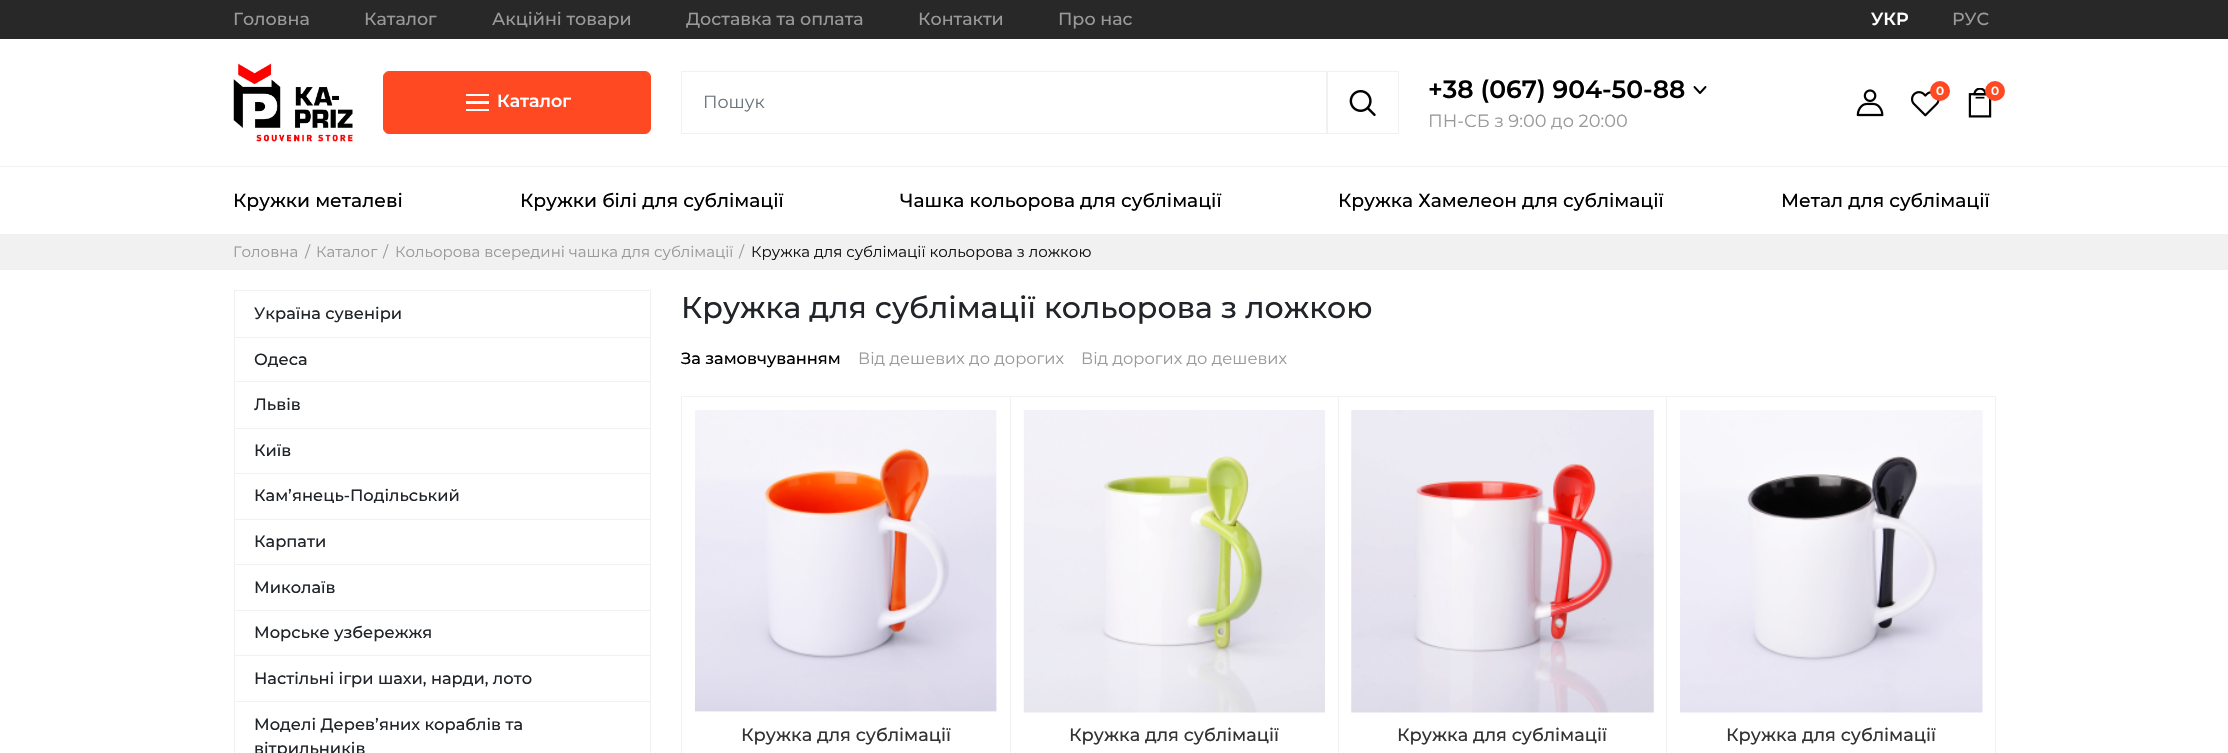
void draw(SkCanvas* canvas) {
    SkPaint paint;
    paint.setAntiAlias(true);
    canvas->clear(0xFFFFFFFF);
    paint.setColor(0xFF282828);
    canvas->drawRect(SkRect::MakeXYWH(0, 0, 2228, 39), paint);
    SkFont font1(fontMgr->matchFamilyStyle("Montserrat", SkFontStyle(500, SkFontStyle::kNormal_Width, SkFontStyle::kUpright_Slant)), 17.5f);
    font1.setSubpixel(true);
    paint.setColor(0xFF999999);
    canvas->drawString("Головна", 233, 25, font1, paint);
    canvas->drawString("Каталог", 364, 25, font1, paint);
    canvas->drawString("Акційні товари", 492, 25, font1, paint);
    canvas->drawString("Доставка та оплата", 686, 25, font1, paint);
    canvas->drawString("Контакти", 918, 25, font1, paint);
    canvas->drawString("Про нас", 1058, 25, font1, paint);
    SkFont font2(fontMgr->matchFamilyStyle("Montserrat", SkFontStyle(600, SkFontStyle::kNormal_Width, SkFontStyle::kUpright_Slant)), 17.5f);
    font2.setSubpixel(true);
    paint.setColor(0xFFFFFFFF);
    canvas->drawString("УКР", 1871, 25, font2, paint);
    paint.setColor(0xFF999999);
    canvas->drawString("РУС", 1952, 25, font1, paint);
    canvas->drawImageRect(SkImages::DeferredFromEncodedData(SkData::MakeFromFileName("img1.png")), SkRect::MakeXYWH(233, 63, 120, 79), SkSamplingOptions());
    paint.setColor(0xFFFE4922);
    canvas->drawRoundRect(SkRect::MakeXYWH(383.5f, 71.5f, 267, 62), 5.5f, 5.5f, paint);
    paint.setStyle(SkPaint::kStroke_Style);
    paint.setStrokeWidth(1);
    canvas->drawRoundRect(SkRect::MakeXYWH(383.5f, 71.5f, 267, 62), 5.5f, 5.5f, paint);
    paint.setStyle(SkPaint::kFill_Style);
    paint.setColor(0xFFFFFFFF);
    canvas->drawRect(SkRect::MakeXYWH(466, 94, 23, 2), paint);
    canvas->drawString("Каталог", 497, 107, font2, paint);
    canvas->drawRect(SkRect::MakeXYWH(466, 101, 23, 3), paint);
    canvas->drawRect(SkRect::MakeXYWH(466, 109, 23, 2), paint);
    paint.setStyle(SkPaint::kStroke_Style);
    paint.setColor(0xFFF1F1F1);
    canvas->drawRect(SkRect::MakeXYWH(681.5f, 71.5f, 646, 62), paint);
    SkFont font3(fontMgr->matchFamilyStyle("Montserrat", SkFontStyle::Normal()), 17.5f);
    font3.setSubpixel(true);
    paint.setStyle(SkPaint::kFill_Style);
    paint.setColor(0xFF6C757D);
    canvas->drawString("Пошук", 703, 108, font3, paint);
    paint.setStyle(SkPaint::kStroke_Style);
    paint.setColor(0xFFF1F1F1);
    canvas->drawRect(SkRect::MakeXYWH(1326.5f, 71.5f, 72, 62), paint);
    canvas->drawImageRect(SkImages::DeferredFromEncodedData(SkData::MakeFromFileName("img2.png")), SkRect::MakeXYWH(1349, 90, 27, 26), SkSamplingOptions());
    SkFont font4(fontMgr->matchFamilyStyle("Montserrat", SkFontStyle(600, SkFontStyle::kNormal_Width, SkFontStyle::kUpright_Slant)), 25);
    font4.setSubpixel(true);
    paint.setStyle(SkPaint::kFill_Style);
    paint.setColor(0xFF000000);
    canvas->drawString("+38 (067) 904-50-88", 1428, 98, font4, paint);
    paint.setStyle(SkPaint::kStroke_Style);
    paint.setStrokeWidth(1.9f);
    paint.setStrokeCap(SkPaint::kRound_Cap);
    paint.setStrokeJoin(SkPaint::kRound_Join);
    canvas->drawPath(SkPathBuilder().moveTo(1694.5f, 87).lineTo(1700, 93).lineTo(1705.5f, 87).detach(), paint);
    SkFont font5(fontMgr->matchFamilyStyle("Montserrat", SkFontStyle::Normal()), 17.75f);
    font5.setSubpixel(true);
    paint.setStyle(SkPaint::kFill_Style);
    paint.setColor(0xFF999999);
    canvas->drawString("ПН-СБ з 9:00 до 20:00", 1428, 127, font5, paint);
    canvas->drawImageRect(SkImages::DeferredFromEncodedData(SkData::MakeFromFileName("img3.png")), SkRect::MakeXYWH(1856, 89, 28, 28), SkSamplingOptions());
    canvas->drawImageRect(SkImages::DeferredFromEncodedData(SkData::MakeFromFileName("img4.png")), SkRect::MakeXYWH(1911, 91, 29, 26), SkSamplingOptions());
    paint.setColor(0xFFFE4922);
    canvas->drawCircle(1940, 91, 10, paint);
    SkFont font6(fontMgr->matchFamilyStyle("Montserrat", SkFontStyle(600, SkFontStyle::kNormal_Width, SkFontStyle::kUpright_Slant)), 12);
    font6.setSubpixel(true);
    paint.setColor(0xFFFFFFFF);
    canvas->drawString("0", 1936, 95, font6, paint);
    canvas->drawImageRect(SkImages::DeferredFromEncodedData(SkData::MakeFromFileName("img5.png")), SkRect::MakeXYWH(1968, 88, 24, 30), SkSamplingOptions());
    paint.setColor(0xFFFE4922);
    canvas->drawCircle(1995, 91, 10, paint);
    paint.setColor(0xFFFFFFFF);
    canvas->drawString("0", 1991, 95, font6, paint);
    paint.setColor(0xFFF1F1F1);
    canvas->drawRect(SkRect::MakeXYWH(0, 166, 2228, 1), paint);
    SkFont font7(fontMgr->matchFamilyStyle("Montserrat", SkFontStyle(500, SkFontStyle::kNormal_Width, SkFontStyle::kUpright_Slant)), 18.75f);
    font7.setSubpixel(true);
    paint.setColor(0xFF000000);
    canvas->drawString("Кружки металеві", 233, 207, font7, paint);
    canvas->drawString("Кружки білі для сублімації", 520, 207, font7, paint);
    canvas->drawString("Чашка кольорова для сублімації", 900, 207, font7, paint);
    canvas->drawString("Кружка Хамелеон для сублімації", 1338, 207, font7, paint);
    canvas->drawString("Метал для сублімації", 1781, 207, font7, paint);
    paint.setColor(0xFFF1F1F1);
    canvas->drawRect(SkRect::MakeXYWH(0, 234, 2228, 36), paint);
    SkFont font8(fontMgr->matchFamilyStyle("Montserrat", SkFontStyle::Normal()), 15);
    font8.setSubpixel(true);
    paint.setColor(0xFF999999);
    canvas->drawString("Головна", 233, 257, font8, paint);
    canvas->drawString("/", 305, 257, font8, paint);
    canvas->drawString("Каталог", 316, 257, font8, paint);
    canvas->drawString("/", 383, 257, font8, paint);
    canvas->drawString("Кольорова всередині чашка для сублімації", 395, 257, font8, paint);
    canvas->drawString("/", 739, 257, font8, paint);
    paint.setColor(0xFF121212);
    canvas->drawString("Кружка для сублімації кольорова з ложкою", 751, 257, font8, paint);
    paint.setStyle(SkPaint::kStroke_Style);
    paint.setStrokeWidth(1);
    paint.setStrokeCap(SkPaint::kButt_Cap);
    paint.setStrokeJoin(SkPaint::kMiter_Join);
    paint.setColor(0xFFF1F1F1);
    canvas->drawRect(SkRect::MakeXYWH(234.5f, 290.5f, 416, 47), paint);
    SkFont font9(fontMgr->matchFamilyStyle("Montserrat", SkFontStyle(500, SkFontStyle::kNormal_Width, SkFontStyle::kUpright_Slant)), 16.25f);
    font9.setSubpixel(true);
    paint.setStyle(SkPaint::kFill_Style);
    paint.setColor(0xFF212529);
    canvas->drawString("Україна сувеніри", 254, 319, font9, paint);
    paint.setColor(0xFFF1F1F1);
    canvas->drawRect(SkRect::MakeXYWH(650, 338, 1, 415), paint);
    canvas->drawRect(SkRect::MakeXYWH(234, 381, 417, 1), paint);
    canvas->drawRect(SkRect::MakeXYWH(234, 338, 1, 45), paint);
    paint.setColor(0xFF212529);
    canvas->drawString("Одеса", 254, 365, font9, paint);
    paint.setColor(0xFFF1F1F1);
    canvas->drawRect(SkRect::MakeXYWH(234, 428, 417, 1), paint);
    canvas->drawRect(SkRect::MakeXYWH(234, 383, 1, 46), paint);
    paint.setColor(0xFF212529);
    canvas->drawString("Львів", 254, 410, font9, paint);
    paint.setColor(0xFFF1F1F1);
    canvas->drawRect(SkRect::MakeXYWH(234, 473, 417, 1), paint);
    canvas->drawRect(SkRect::MakeXYWH(234, 429, 1, 45), paint);
    paint.setColor(0xFF212529);
    canvas->drawString("Київ", 254, 456, font9, paint);
    paint.setColor(0xFFF1F1F1);
    canvas->drawRect(SkRect::MakeXYWH(234, 519, 417, 1), paint);
    canvas->drawRect(SkRect::MakeXYWH(234, 474, 1, 46), paint);
    paint.setColor(0xFF212529);
    canvas->drawString("Камʼянець-Подільський", 254, 501, font9, paint);
    paint.setColor(0xFFF1F1F1);
    canvas->drawRect(SkRect::MakeXYWH(234, 564, 417, 1), paint);
    canvas->drawRect(SkRect::MakeXYWH(234, 520, 1, 45), paint);
    paint.setColor(0xFF212529);
    canvas->drawString("Карпати", 254, 547, font9, paint);
    paint.setColor(0xFFF1F1F1);
    canvas->drawRect(SkRect::MakeXYWH(234, 610, 417, 1), paint);
    canvas->drawRect(SkRect::MakeXYWH(234, 565, 1, 46), paint);
    paint.setColor(0xFF212529);
    canvas->drawString("Миколаїв", 254, 593, font9, paint);
    paint.setColor(0xFFF1F1F1);
    canvas->drawRect(SkRect::MakeXYWH(234, 655, 417, 1), paint);
    canvas->drawRect(SkRect::MakeXYWH(234, 611, 1, 45), paint);
    paint.setColor(0xFF212529);
    canvas->drawString("Морське узбережжя", 254, 638, font9, paint);
    paint.setColor(0xFFF1F1F1);
    canvas->drawRect(SkRect::MakeXYWH(234, 701, 417, 1), paint);
    canvas->drawRect(SkRect::MakeXYWH(234, 656, 1, 97), paint);
    paint.setColor(0xFF212529);
    canvas->drawString("Настільні ігри шахи, нарди, лото", 254, 684, font9, paint);
    canvas->drawString("Моделі Деревʼяних кораблів та", 254, 730, font9, paint);
    canvas->drawString("вітрильників", 254, 754, font9, paint);
    SkFont font10(fontMgr->matchFamilyStyle("Montserrat", SkFontStyle(500, SkFontStyle::kNormal_Width, SkFontStyle::kUpright_Slant)), 30);
    font10.setSubpixel(true);
    canvas->drawString("Кружка для сублімації кольорова з ложкою", 681, 318, font10, paint);
    paint.setColor(0xFF000000);
    canvas->drawString("За замовчуванням", 681, 364, font9, paint);
    SkFont font11(fontMgr->matchFamilyStyle("Montserrat", SkFontStyle::Normal()), 16.25f);
    font11.setSubpixel(true);
    paint.setColor(0xFF999999);
    canvas->drawString("Від дешевих до дорогих", 858, 364, font11, paint);
    canvas->drawString("Від дорогих до дешевих", 1081, 364, font11, paint);
    paint.setColor(0xFFF1F1F1);
    canvas->drawRect(SkRect::MakeXYWH(681, 396, 1, 357), paint);
    canvas->drawRect(SkRect::MakeXYWH(683, 396, 1313, 1), paint);
    canvas->drawRect(SkRect::MakeXYWH(1010, 396, 1, 357), paint);
    canvas->drawImageRect(SkImages::DeferredFromEncodedData(SkData::MakeFromFileName("img6.png")), SkRect::MakeXYWH(695, 410, 302, 302), SkSamplingOptions());
    SkFont font12(fontMgr->matchFamilyStyle("Montserrat", SkFontStyle(500, SkFontStyle::kNormal_Width, SkFontStyle::kUpright_Slant)), 17.75f);
    font12.setSubpixel(true);
    paint.setColor(0xFF333333);
    canvas->drawString("Кружка для сублімації", 741, 741, font12, paint);
    paint.setColor(0xFFF1F1F1);
    canvas->drawRect(SkRect::MakeXYWH(1338, 396, 1, 357), paint);
    canvas->drawImageRect(SkImages::DeferredFromEncodedData(SkData::MakeFromFileName("img7.png")), SkRect::MakeXYWH(1023, 410, 302, 303), SkSamplingOptions());
    paint.setColor(0xFF333333);
    canvas->drawString("Кружка для сублімації", 1069, 741, font12, paint);
    paint.setColor(0xFFF1F1F1);
    canvas->drawRect(SkRect::MakeXYWH(1666, 396, 1, 357), paint);
    canvas->drawImageRect(SkImages::DeferredFromEncodedData(SkData::MakeFromFileName("img8.png")), SkRect::MakeXYWH(1351, 410, 303, 303), SkSamplingOptions());
    paint.setColor(0xFF333333);
    canvas->drawString("Кружка для сублімації", 1397, 741, font12, paint);
    paint.setColor(0xFFF1F1F1);
    canvas->drawRect(SkRect::MakeXYWH(1995, 396, 1, 357), paint);
    canvas->drawImageRect(SkImages::DeferredFromEncodedData(SkData::MakeFromFileName("img9.png")), SkRect::MakeXYWH(1680, 410, 303, 303), SkSamplingOptions());
    paint.setColor(0xFF333333);
    canvas->drawString("Кружка для сублімації", 1726, 741, font12, paint);
}
